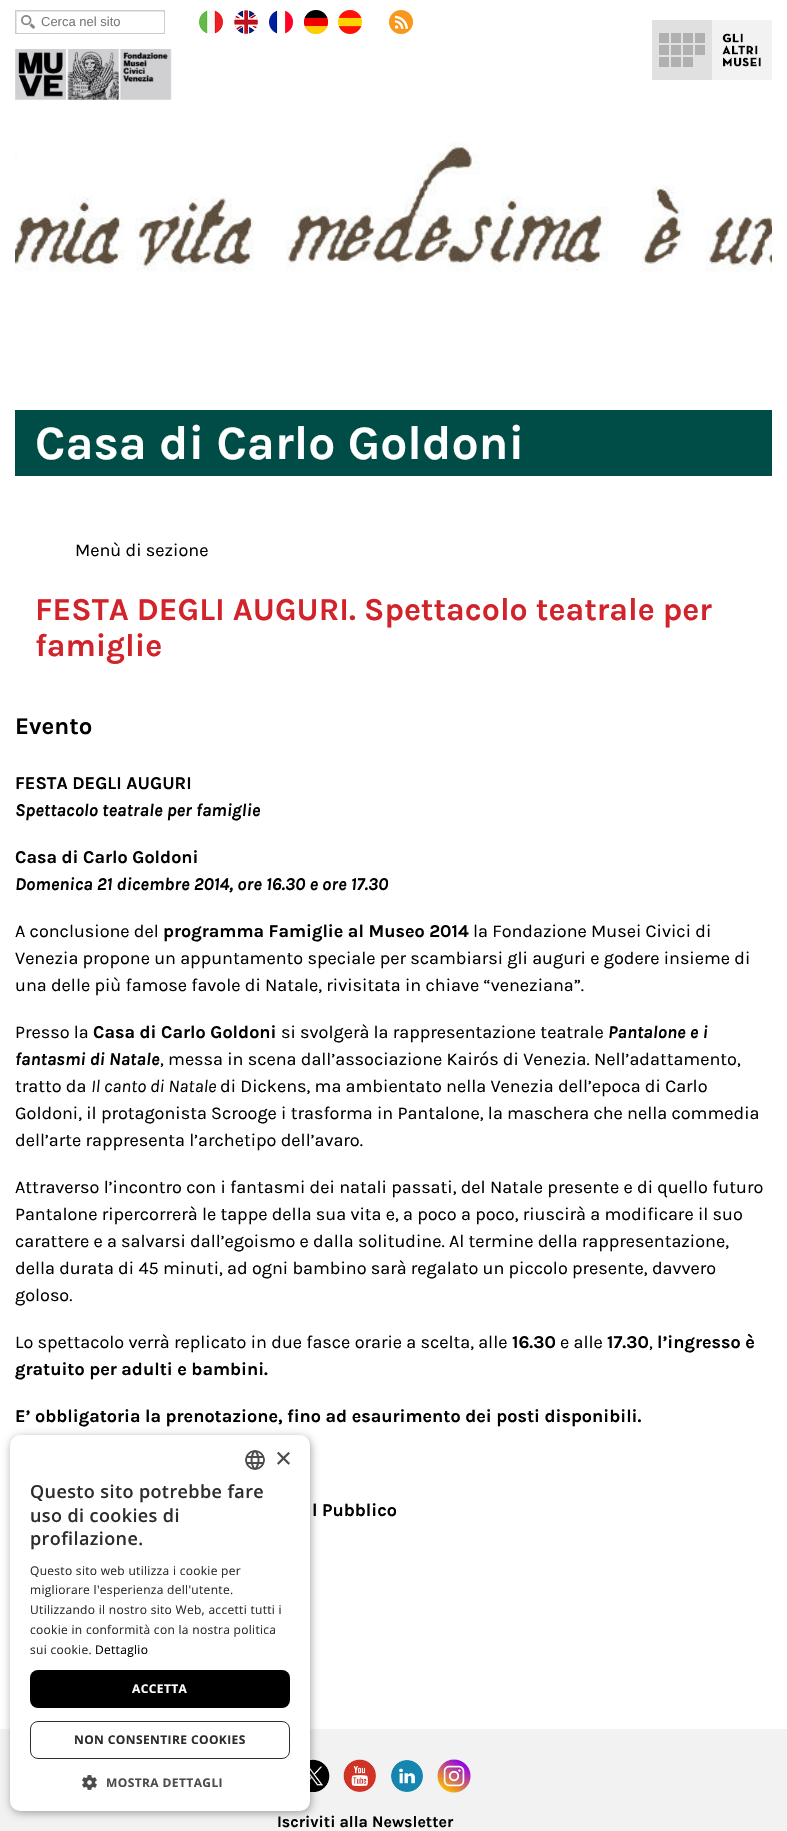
void draw(SkCanvas* canvas) {
    SkPaint paint;
    paint.setAntiAlias(true);
    auto spacedText = [&](const char* s, float x, float y, const SkFont& font, const SkPaint& ink, float letter, float word) {
        std::vector<SkGlyphID> glyphs(font.countText(s, strlen(s), SkTextEncoding::kUTF8));
        std::vector<float> xs(glyphs.size());
        font.textToGlyphs(s, strlen(s), SkTextEncoding::kUTF8, glyphs);
        font.getXPos(glyphs, xs, x);
        float extra = 0;
        for (size_t i = 0; i < glyphs.size(); i++) {
            xs[i] += extra;
            extra += letter + word * (glyphs[i] == font.unicharToGlyph(' '));
        }
        canvas->drawTextBlob(SkTextBlob::MakeFromPosHGlyphs(glyphs, xs, y, font), 0, 0, ink);
    };
    canvas->clear(0xFFFFFFFF);
    canvas->drawImageRect(SkImages::DeferredFromEncodedData(SkData::MakeFromFileName("img1.png")), SkRect::MakeXYWH(21, 15, 14, 14), SkSamplingOptions());
    canvas->save();
    canvas->clipRect(SkRect::MakeXYWH(16, 11, 148, 22));
    paint.setColor(0xFFE6E6E6);
    canvas->drawPath(SkPathBuilder(SkPathFillType::kEvenOdd).moveTo(-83, -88).lineTo(263, -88).lineTo(263, 132).lineTo(-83, 132).close().moveTo(17, 12).lineTo(165, 12).lineTo(165, 34).lineTo(17, 34).close().detach(), paint);
    canvas->restore();
    paint.setStyle(SkPaint::kStroke_Style);
    paint.setStrokeWidth(1);
    paint.setColor(0xFFCCCCCC);
    canvas->drawRect(SkRect::MakeXYWH(15.5f, 10.5f, 149, 23), paint);
    SkFont font1(fontMgr->matchFamilyStyle("Liberation Sans", SkFontStyle::Normal()), 13);
    font1.setSubpixel(true);
    paint.setStyle(SkPaint::kFill_Style);
    paint.setColor(0xFF7A7A7A);
    canvas->drawString("Cerca nel sito", 41, 26, font1, paint);
    canvas->drawImageRect(SkImages::DeferredFromEncodedData(SkData::MakeFromFileName("img2.png")), SkRect::MakeXYWH(199, 10, 24, 24), SkSamplingOptions());
    canvas->drawImageRect(SkImages::DeferredFromEncodedData(SkData::MakeFromFileName("img3.png")), SkRect::MakeXYWH(234, 10, 24, 24), SkSamplingOptions());
    canvas->drawImageRect(SkImages::DeferredFromEncodedData(SkData::MakeFromFileName("img4.png")), SkRect::MakeXYWH(269, 10, 24, 24), SkSamplingOptions());
    canvas->drawImageRect(SkImages::DeferredFromEncodedData(SkData::MakeFromFileName("img5.png")), SkRect::MakeXYWH(304, 10, 24, 24), SkSamplingOptions());
    canvas->drawImageRect(SkImages::DeferredFromEncodedData(SkData::MakeFromFileName("img6.png")), SkRect::MakeXYWH(338, 10, 24, 24), SkSamplingOptions());
    canvas->drawImageRect(SkImages::DeferredFromEncodedData(SkData::MakeFromFileName("img7.png")), SkRect::MakeXYWH(389, 10, 24, 24), SkSamplingOptions());
    paint.setColor(0xFFF2F2F2);
    canvas->drawRect(SkRect::MakeXYWH(761, 20, 11, 60), paint);
    canvas->drawImageRect(SkImages::DeferredFromEncodedData(SkData::MakeFromFileName("img8.png")), SkRect::MakeXYWH(652, 20, 109, 60), SkSamplingOptions());
    canvas->drawImageRect(SkImages::DeferredFromEncodedData(SkData::MakeFromFileName("img9.png")), SkRect::MakeXYWH(15, 49, 157, 51), SkSamplingOptions());
    canvas->drawImageRect(SkImages::DeferredFromEncodedData(SkData::MakeFromFileName("img10.png")), SkRect::MakeXYWH(15, 142, 757, 130), SkSamplingOptions());
    paint.setColor(0xFF004D48);
    canvas->drawRect(SkRect::MakeXYWH(15, 410, 757, 66), paint);
    SkFont font2(fontMgr->matchFamilyStyle("Karla", SkFontStyle::Bold()), 48);
    font2.setSubpixel(true);
    paint.setColor(0xFFFFFFFF);
    canvas->drawString("Casa di Carlo Goldoni", 35, 459, font2, paint);
    SkFont font3(fontMgr->matchFamilyStyle("Karla", SkFontStyle::Normal()), 18);
    font3.setSubpixel(true);
    paint.setColor(0xFF000000);
    canvas->drawString("Menù di sezione", 75, 556, font3, paint);
    SkFont font4(fontMgr->matchFamilyStyle("Karla", SkFontStyle::Bold()), 32);
    font4.setSubpixel(true);
    paint.setColor(0xFFD2232A);
    canvas->drawString("FESTA DEGLI AUGURI. Spettacolo teatrale per", 35, 620, font4, paint);
    canvas->drawString("famiglie", 35, 656, font4, paint);
    SkFont font5(fontMgr->matchFamilyStyle("Karla", SkFontStyle::Bold()), 24);
    font5.setSubpixel(true);
    paint.setColor(0xFF000000);
    canvas->drawString("Evento", 15, 734, font5, paint);
    SkFont font6(fontMgr->matchFamilyStyle("Karla", SkFontStyle::Bold()), 18);
    font6.setSubpixel(true);
    canvas->drawString("FESTA DEGLI AUGURI", 15, 789, font6, paint);
    SkFont font7(fontMgr->matchFamilyStyle("Karla", SkFontStyle::BoldItalic()), 18);
    font7.setSubpixel(true);
    canvas->drawString("Spettacolo teatrale per famiglie", 15, 816, font7, paint);
    canvas->drawString("Casa di Carlo Goldoni", 15, 863, font6, paint);
    canvas->drawString("Domenica 21 dicembre 2014, ore 16.30 e ore 17.30", 15, 890, font7, paint);
    canvas->drawString("A conclusione del", 15, 937, font3, paint);
    canvas->drawString("programma Famiglie al Museo 2014", 163, 937, font6, paint);
    canvas->drawString("la Fondazione Musei Civici di", 473, 937, font3, paint);
    canvas->drawString("Venezia propone un appuntamento speciale per scambiarsi gli auguri e godere insieme di", 15, 964, font3, paint);
    canvas->drawString("una delle più famose favole di Natale, rivisitata in chiave “veneziana”.", 15, 991, font3, paint);
    canvas->drawString("Presso la", 15, 1038, font3, paint);
    canvas->drawString("Casa di Carlo Goldoni", 93, 1038, font6, paint);
    canvas->drawString("si svolgerà la rappresentazione teatrale", 281, 1038, font3, paint);
    canvas->drawString("Pantalone e i", 608, 1038, font7, paint);
    canvas->drawString("fantasmi di Natale", 15, 1065, font7, paint);
    canvas->drawString(", messa in scena dall’associazione Kairós di Venezia. Nell’adattamento,", 160, 1065, font3, paint);
    canvas->drawString("tratto da", 15, 1092, font3, paint);
    SkFont font8(fontMgr->matchFamilyStyle("Karla", SkFontStyle::Italic()), 18);
    font8.setSubpixel(true);
    canvas->drawString("Il canto di Natale", 91, 1092, font8, paint);
    canvas->drawString("di Dickens, ma ambientato nella Venezia dell’epoca di Carlo", 220, 1092, font3, paint);
    canvas->drawString("Goldoni, il protagonista Scrooge i trasforma in Pantalone, la maschera che nella commedia", 15, 1119, font3, paint);
    canvas->drawString("dell’arte rappresenta l’archetipo dell’avaro.", 15, 1146, font3, paint);
    canvas->drawString("Attraverso l’incontro con i fantasmi dei natali passati, del Natale presente e di quello futuro", 15, 1193, font3, paint);
    canvas->drawString("Pantalone ripercorrerà le tappe della sua vita e, a poco a poco, riuscirà a modificare il suo", 15, 1220, font3, paint);
    canvas->drawString("carattere e a salvarsi dall’egoismo e dalla solitudine. Al termine della rappresentazione,", 15, 1247, font3, paint);
    canvas->drawString("della durata di 45 minuti, ad ogni bambino sarà regalato un piccolo presente, davvero", 15, 1274, font3, paint);
    canvas->drawString("goloso.", 15, 1301, font3, paint);
    canvas->drawString("Lo spettacolo verrà replicato in due fasce orarie a scelta, alle", 15, 1348, font3, paint);
    canvas->drawString("16.30", 512, 1348, font6, paint);
    canvas->drawString("e alle", 560, 1348, font3, paint);
    canvas->drawString("17.30", 607, 1348, font6, paint);
    canvas->drawString(",", 649, 1348, font3, paint);
    canvas->drawString("l’ingresso è", 657, 1348, font6, paint);
    canvas->drawString("gratuito per adulti e bambini.", 15, 1375, font6, paint);
    canvas->drawString("E’ obbligatoria la prenotazione, fino ad esaurimento dei posti disponibili.", 15, 1422, font6, paint);
    canvas->drawString("l Pubblico", 312, 1516, font6, paint);
    paint.setColor(0xFFF2F2F2);
    canvas->drawRect(SkRect::MakeXYWH(0, 1729, 787, 102), paint);
    canvas->drawImageRect(SkImages::DeferredFromEncodedData(SkData::MakeFromFileName("img13.png")), SkRect::MakeXYWH(310, 1759, 20, 33), SkSamplingOptions());
    paint.setColor(0x59000000);
    paint.setMaskFilter(SkMaskFilter::MakeBlur(kNormal_SkBlurStyle, 4));
    canvas->drawRoundRect(SkRect::MakeXYWH(11, 1437, 300, 376), 10, 10, paint);
    paint.setMaskFilter(nullptr);
    paint.setColor(0xFFFFFFFF);
    canvas->drawRoundRect(SkRect::MakeXYWH(10, 1435, 300, 376), 10, 10, paint);
    canvas->drawImageRect(SkImages::DeferredFromEncodedData(SkData::MakeFromFileName("img11.png")), SkRect::MakeXYWH(245, 1450, 20, 20), SkSamplingOptions());
    SkFont font9(fontMgr->matchFamilyStyle("Liberation Sans", SkFontStyle::Normal()), 29);
    font9.setSubpixel(true);
    paint.setColor(0xFF4D4D4D);
    canvas->drawString("×", 275, 1468, font9, paint);
    SkFont font10(fontMgr->matchFamilyStyle("Open Sans", SkFontStyle(600, SkFontStyle::kNormal_Width, SkFontStyle::kUpright_Slant)), 18);
    font10.setSubpixel(true);
    paint.setColor(0xFF2D2D2D);
    spacedText("Questo sito potrebbe fare", 30, 1498, font10, paint, 0.4f, 0);
    spacedText("uso di cookies di", 30, 1522, font10, paint, 0.4f, 0);
    spacedText("profilazione.", 30, 1545, font10, paint, 0.4f, 0);
    SkFont font11(fontMgr->matchFamilyStyle("Open Sans", SkFontStyle::Normal()), 12);
    font11.setSubpixel(true);
    spacedText("Questo sito web utilizza i cookie per", 30, 1575, font11, paint, 0.3f, 0);
    spacedText("migliorare l'esperienza dell'utente.", 30, 1594, font11, paint, 0.3f, 0);
    spacedText("Utilizzando il nostro sito Web, accetti tutti i", 30, 1614, font11, paint, 0.3f, 0);
    spacedText("cookie in conformità con la nostra politica", 30, 1634, font11, paint, 0.3f, 0);
    spacedText("sui cookie.", 30, 1654, font11, paint, 0.3f, 0);
    paint.setColor(0xFF000000);
    spacedText("Dettaglio", 95, 1654, font11, paint, 0.3f, 0);
    canvas->drawRoundRect(SkRect::MakeXYWH(30, 1670, 260, 38), 8, 8, paint);
    SkFont font12(fontMgr->matchFamilyStyle("Open Sans", SkFontStyle::Bold()), 12);
    font12.setSubpixel(true);
    paint.setColor(0xFFFFFFFF);
    spacedText("ACCETTA", 132, 1693, font12, paint, 0.4f, 0);
    paint.setStyle(SkPaint::kStroke_Style);
    paint.setColor(0xFF2D2D2D);
    canvas->drawRoundRect(SkRect::MakeXYWH(30.5f, 1721.5f, 259, 37), 7.5f, 7.5f, paint);
    paint.setStyle(SkPaint::kFill_Style);
    spacedText("NON CONSENTIRE COOKIES", 74, 1744, font12, paint, 0.4f, 0);
    canvas->drawImageRect(SkImages::DeferredFromEncodedData(SkData::MakeFromFileName("img12.png")), SkRect::MakeXYWH(82, 1775, 15, 15), SkSamplingOptions());
    paint.setColor(0xFF4D4D4D);
    spacedText("MOSTRA DETTAGLI", 106, 1787, font12, paint, 0.4f, 0);
    canvas->drawImageRect(SkImages::DeferredFromEncodedData(SkData::MakeFromFileName("img14.png")), SkRect::MakeXYWH(343, 1759, 33, 33), SkSamplingOptions());
    canvas->drawImageRect(SkImages::DeferredFromEncodedData(SkData::MakeFromFileName("img15.png")), SkRect::MakeXYWH(391, 1760, 32, 32), SkSamplingOptions());
    canvas->drawImageRect(SkImages::DeferredFromEncodedData(SkData::MakeFromFileName("img16.png")), SkRect::MakeXYWH(437, 1759, 34, 34), SkSamplingOptions());
    SkFont font13(fontMgr->matchFamilyStyle("Karla", SkFontStyle::Bold()), 16);
    font13.setSubpixel(true);
    paint.setColor(0xFF000000);
    canvas->drawString("Iscriviti alla Newsletter", 277, 1827, font13, paint);
}
